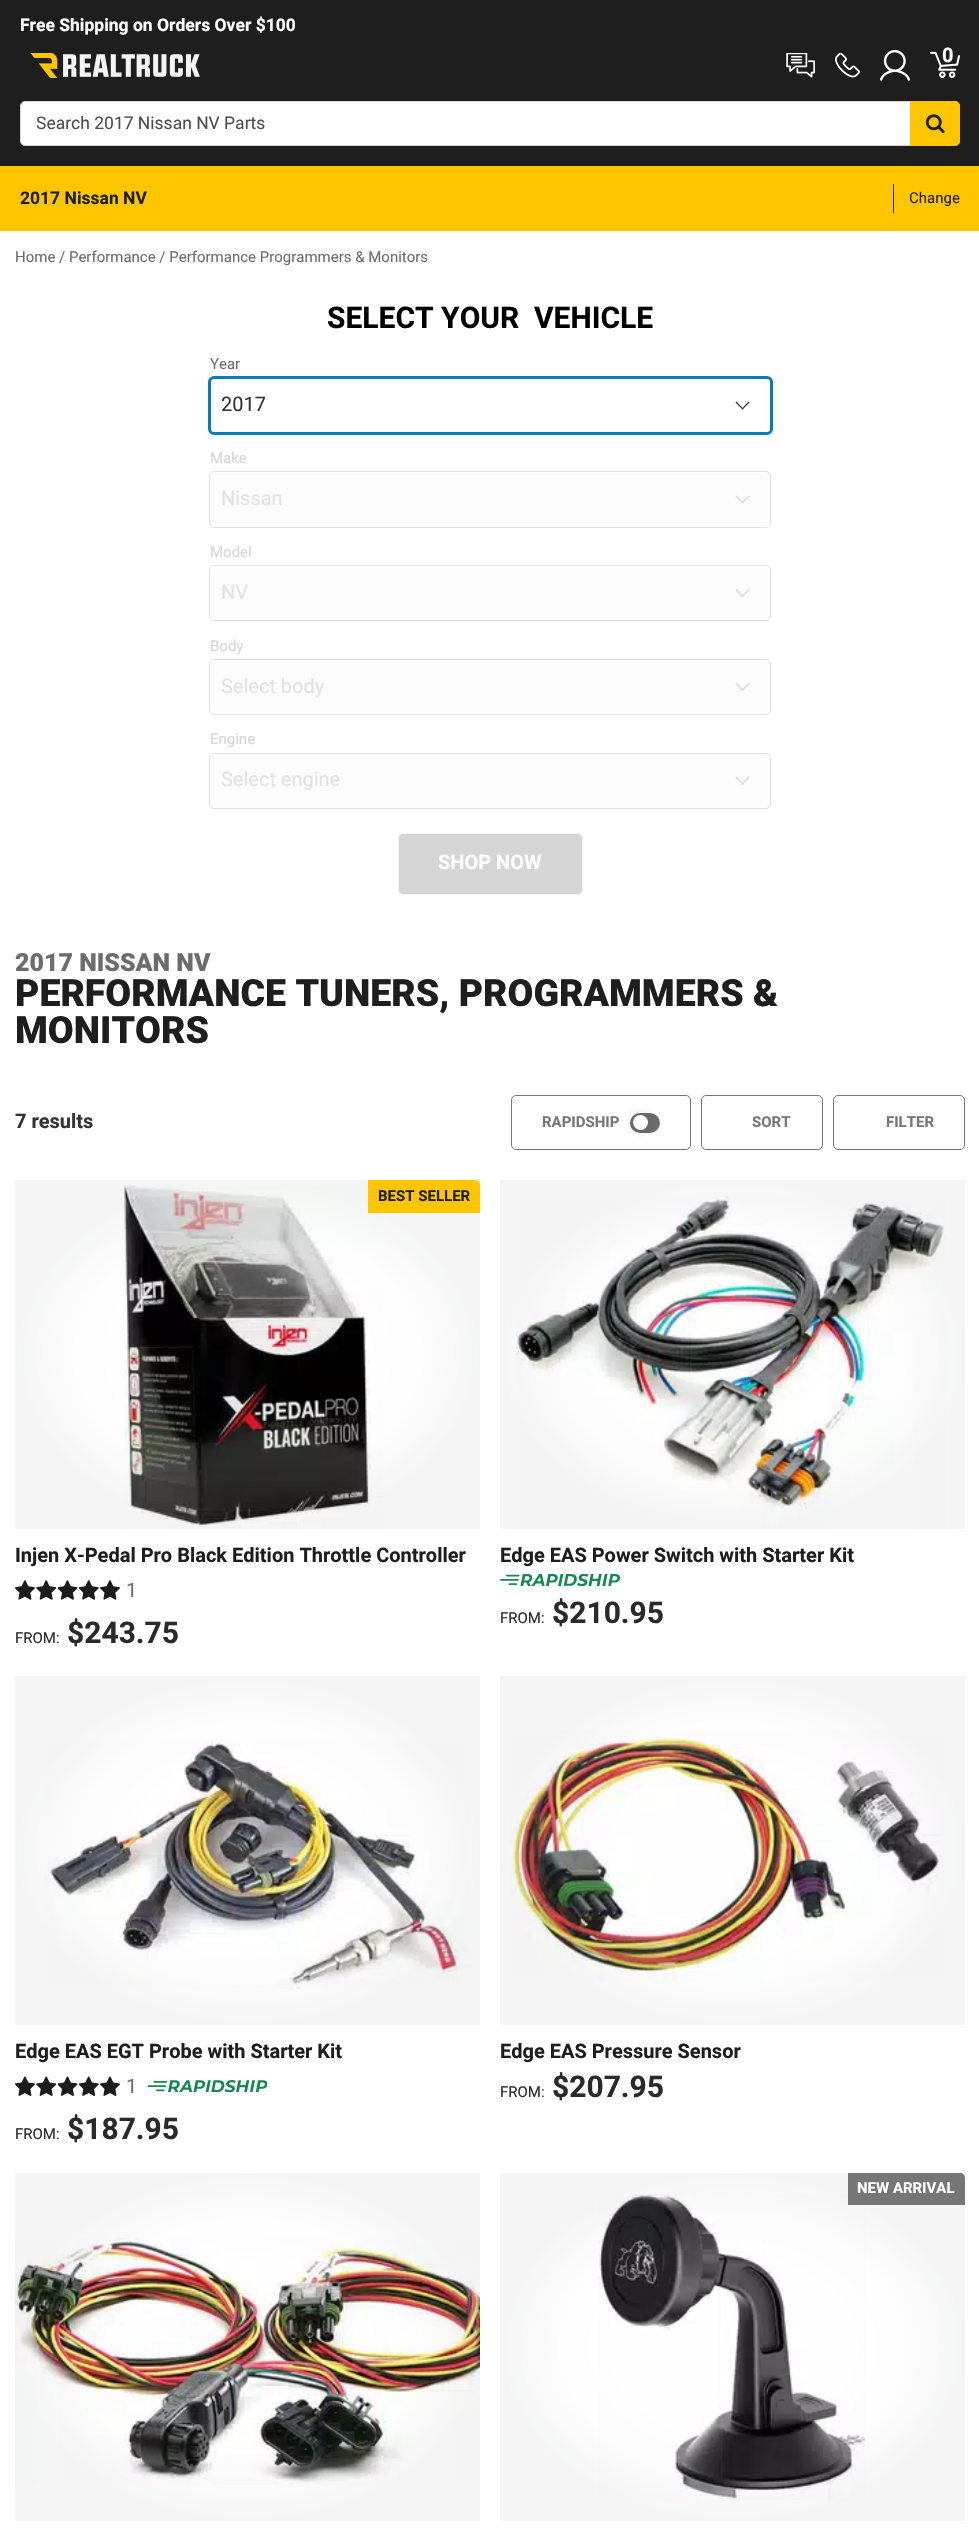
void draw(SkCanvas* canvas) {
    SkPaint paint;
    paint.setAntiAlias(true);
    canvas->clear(0xFFFFFFFF);
    paint.setColor(0xFF1E1E1E);
    canvas->drawRect(SkRect::MakeXYWH(0, 0, 979, 166), paint);
    SkFont font1(fontMgr->matchFamilyStyle("Roboto", SkFontStyle::Bold()), 17.5f);
    font1.setSubpixel(true);
    paint.setColor(0xFFFFFFFF);
    canvas->drawString("Free Shipping on Orders Over $100", 20, 31, font1, paint);
    canvas->drawImageRect(SkImages::DeferredFromEncodedData(SkData::MakeFromFileName("img1.png")), SkRect::MakeXYWH(30, 53, 170, 25), SkSamplingOptions());
    canvas->drawImageRect(SkImages::DeferredFromEncodedData(SkData::MakeFromFileName("img2.png")), SkRect::MakeXYWH(786, 53, 29, 25), SkSamplingOptions());
    canvas->drawImageRect(SkImages::DeferredFromEncodedData(SkData::MakeFromFileName("img3.png")), SkRect::MakeXYWH(835, 53, 25, 25), SkSamplingOptions());
    canvas->drawImageRect(SkImages::DeferredFromEncodedData(SkData::MakeFromFileName("img4.png")), SkRect::MakeXYWH(880, 50, 30, 31), SkSamplingOptions());
    canvas->drawImageRect(SkImages::DeferredFromEncodedData(SkData::MakeFromFileName("img5.png")), SkRect::MakeXYWH(930, 51, 30, 27), SkSamplingOptions());
    SkFont font2(fontMgr->matchFamilyStyle("Roboto", SkFontStyle::Bold()), 20);
    font2.setSubpixel(true);
    canvas->drawString("0", 942, 62, font2, paint);
    canvas->drawRoundRect(SkRect::MakeXYWH(20.5f, 101.5f, 939, 44), 4.5f, 4.5f, paint);
    paint.setStyle(SkPaint::kStroke_Style);
    paint.setStrokeWidth(1);
    paint.setColor(0xFFD5D5D5);
    canvas->drawRoundRect(SkRect::MakeXYWH(20.5f, 101.5f, 939, 44), 4.5f, 4.5f, paint);
    SkFont font3(fontMgr->matchFamilyStyle("Roboto", SkFontStyle::Normal()), 17.5f);
    font3.setSubpixel(true);
    paint.setStyle(SkPaint::kFill_Style);
    paint.setColor(0xFF4D4D4D);
    canvas->drawString("Search 2017 Nissan NV Parts", 36, 129, font3, paint);
    paint.setColor(0xFFFFC600);
    canvas->drawPath(SkPathBuilder().moveTo(910.5f, 101.5f).lineTo(955, 101.5f).cubicTo(957.5f, 101.5f, 959.5f, 103.5f, 959.5f, 106).lineTo(959.5f, 141).cubicTo(959.5f, 143.5f, 957.5f, 145.5f, 955, 145.5f).lineTo(910.5f, 145.5f).close().detach(), paint);
    paint.setStyle(SkPaint::kStroke_Style);
    canvas->drawPath(SkPathBuilder().moveTo(910.5f, 101.5f).lineTo(955, 101.5f).cubicTo(957.5f, 101.5f, 959.5f, 103.5f, 959.5f, 106).lineTo(959.5f, 141).cubicTo(959.5f, 143.5f, 957.5f, 145.5f, 955, 145.5f).lineTo(910.5f, 145.5f).close().detach(), paint);
    canvas->drawImageRect(SkImages::DeferredFromEncodedData(SkData::MakeFromFileName("img6.png")), SkRect::MakeXYWH(925, 114, 20, 20), SkSamplingOptions());
    paint.setStyle(SkPaint::kFill_Style);
    canvas->drawRect(SkRect::MakeXYWH(0, 166, 979, 65), paint);
    paint.setColor(0xFF1E1E1E);
    canvas->drawString("2017 Nissan NV", 20, 204, font1, paint);
    canvas->drawRect(SkRect::MakeXYWH(893, 184, 1, 29), paint);
    SkFont font4(fontMgr->matchFamilyStyle("Roboto", SkFontStyle::Normal()), 15);
    font4.setSubpixel(true);
    canvas->drawString("Change", 909, 203, font4, paint);
    paint.setColor(0xFF6C6C6C);
    canvas->drawString("Home / Performance / Performance Programmers & Monitors", 15, 262, font4, paint);
    SkFont font5(fontMgr->matchFamilyStyle("Roboto", SkFontStyle::Bold()), 30);
    font5.setSubpixel(true);
    paint.setColor(0xFF000000);
    canvas->drawString("SELECT YOUR", 327, 328, font5, paint);
    canvas->drawString("VEHICLE", 534, 328, font5, paint);
    paint.setColor(0xFF6C6C6C);
    canvas->drawString("Year", 210, 369, font4, paint);
    paint.setStyle(SkPaint::kStroke_Style);
    paint.setStrokeWidth(3);
    paint.setColor(0xFF057DBC);
    canvas->drawRoundRect(SkRect::MakeXYWH(209.5f, 377.5f, 562, 56), 4.5f, 4.5f, paint);
    SkFont font6(fontMgr->matchFamilyStyle("Roboto", SkFontStyle::Normal()), 20);
    font6.setSubpixel(true);
    paint.setStyle(SkPaint::kFill_Style);
    paint.setColor(0xFF333333);
    canvas->drawString("2017", 221, 411, font6, paint);
    canvas->drawPath(SkPathBuilder().moveTo(741.5f, 409).lineTo(748.5f, 401.5f).lineTo(749.5f, 402.5f).lineTo(742.5f, 409.5f).close().detach(), paint);
    canvas->drawPath(SkPathBuilder().moveTo(735.5f, 402.5f).lineTo(736.5f, 401.5f).lineTo(743.5f, 409).lineTo(742.5f, 409.5f).close().detach(), paint);
    paint.setColor(0xFFD5D5D5);
    canvas->drawString("Make", 210, 463, font4, paint);
    paint.setColor(0xFFFCFCFC);
    canvas->drawRoundRect(SkRect::MakeXYWH(210, 473, 560, 53), 4, 4, paint);
    paint.setStyle(SkPaint::kStroke_Style);
    paint.setStrokeWidth(1);
    paint.setColor(0xFFE2E2E2);
    canvas->drawRoundRect(SkRect::MakeXYWH(209.5f, 471.5f, 561, 56), 4.5f, 4.5f, paint);
    paint.setStyle(SkPaint::kFill_Style);
    canvas->drawString("Nissan", 221, 505, font6, paint);
    paint.setColor(0xFFD5D5D5);
    canvas->drawPath(SkPathBuilder().moveTo(741.5f, 502.5f).lineTo(748.5f, 495.5f).lineTo(749.5f, 496.5f).lineTo(742.5f, 503.5f).close().detach(), paint);
    canvas->drawPath(SkPathBuilder().moveTo(735.5f, 496.5f).lineTo(736.5f, 495.5f).lineTo(743.5f, 502.5f).lineTo(742.5f, 503.5f).close().detach(), paint);
    canvas->drawString("Model", 210, 557, font4, paint);
    paint.setColor(0xFFFCFCFC);
    canvas->drawRoundRect(SkRect::MakeXYWH(210, 566, 560, 54), 4, 4, paint);
    paint.setStyle(SkPaint::kStroke_Style);
    paint.setColor(0xFFE2E2E2);
    canvas->drawRoundRect(SkRect::MakeXYWH(209.5f, 565.5f, 561, 55), 4.5f, 4.5f, paint);
    paint.setStyle(SkPaint::kFill_Style);
    canvas->drawString("NV", 221, 599, font6, paint);
    paint.setColor(0xFFD5D5D5);
    canvas->drawPath(SkPathBuilder().moveTo(741.5f, 596.5f).lineTo(748.5f, 589).lineTo(749.5f, 590).lineTo(742.5f, 597).close().detach(), paint);
    canvas->drawPath(SkPathBuilder().moveTo(735.5f, 590).lineTo(736.5f, 589).lineTo(743.5f, 596.5f).lineTo(742.5f, 597).close().detach(), paint);
    canvas->drawString("Body", 210, 651, font4, paint);
    paint.setColor(0xFFFCFCFC);
    canvas->drawRoundRect(SkRect::MakeXYWH(210, 660, 560, 54), 4, 4, paint);
    paint.setStyle(SkPaint::kStroke_Style);
    paint.setColor(0xFFE2E2E2);
    canvas->drawRoundRect(SkRect::MakeXYWH(209.5f, 659.5f, 561, 55), 4.5f, 4.5f, paint);
    paint.setStyle(SkPaint::kFill_Style);
    canvas->drawString("Select body", 221, 693, font6, paint);
    paint.setColor(0xFFD5D5D5);
    canvas->drawPath(SkPathBuilder().moveTo(741.5f, 690).lineTo(748.5f, 683).lineTo(749.5f, 684).lineTo(742.5f, 691).close().detach(), paint);
    canvas->drawPath(SkPathBuilder().moveTo(735.5f, 684).lineTo(736.5f, 683).lineTo(743.5f, 690).lineTo(742.5f, 691).close().detach(), paint);
    canvas->drawString("Engine", 210, 744, font4, paint);
    paint.setColor(0xFFFCFCFC);
    canvas->drawRoundRect(SkRect::MakeXYWH(210, 754, 560, 54), 4, 4, paint);
    paint.setStyle(SkPaint::kStroke_Style);
    paint.setColor(0xFFE2E2E2);
    canvas->drawRoundRect(SkRect::MakeXYWH(209.5f, 753.5f, 561, 55), 4.5f, 4.5f, paint);
    paint.setStyle(SkPaint::kFill_Style);
    canvas->drawString("Select engine", 221, 786, font6, paint);
    paint.setColor(0xFFD5D5D5);
    canvas->drawPath(SkPathBuilder().moveTo(741.5f, 784).lineTo(748.5f, 776.5f).lineTo(749.5f, 777.5f).lineTo(742.5f, 784.5f).close().detach(), paint);
    canvas->drawPath(SkPathBuilder().moveTo(735.5f, 777.5f).lineTo(736.5f, 776.5f).lineTo(743.5f, 784).lineTo(742.5f, 784.5f).close().detach(), paint);
    canvas->drawRoundRect(SkRect::MakeXYWH(398.5f, 833.5f, 184, 61), 4.5f, 4.5f, paint);
    paint.setStyle(SkPaint::kStroke_Style);
    paint.setColor(0xFFF3F3F3);
    canvas->drawRoundRect(SkRect::MakeXYWH(398.5f, 833.5f, 184, 61), 4.5f, 4.5f, paint);
    paint.setStyle(SkPaint::kFill_Style);
    paint.setColor(0xFFFFFFFF);
    canvas->drawString("SHOP NOW", 438, 869, font2, paint);
    SkFont font7(fontMgr->matchFamilyStyle("Roboto", SkFontStyle(900, SkFontStyle::kNormal_Width, SkFontStyle::kUpright_Slant)), 25);
    font7.setSubpixel(true);
    paint.setColor(0xFF6C6C6C);
    canvas->drawString("2017 NISSAN NV", 15, 971, font7, paint);
    SkFont font8(fontMgr->matchFamilyStyle("Roboto", SkFontStyle(900, SkFontStyle::kNormal_Width, SkFontStyle::kUpright_Slant)), 37.5f);
    font8.setSubpixel(true);
    paint.setColor(0xFF1E1E1E);
    canvas->drawString("PERFORMANCE TUNERS, PROGRAMMERS &", 15, 1006, font8, paint);
    canvas->drawString("MONITORS", 15, 1043, font8, paint);
    paint.setColor(0xFF333333);
    canvas->drawString("7 results", 15, 1128, font2, paint);
    paint.setStyle(SkPaint::kStroke_Style);
    paint.setColor(0xFF767676);
    canvas->drawRoundRect(SkRect::MakeXYWH(511.5f, 1095.5f, 179, 54), 4.5f, 4.5f, paint);
    SkFont font9(fontMgr->matchFamilyStyle("Roboto", SkFontStyle::Bold()), 15);
    font9.setSubpixel(true);
    paint.setStyle(SkPaint::kFill_Style);
    canvas->drawString("RAPIDSHIP", 542, 1127, font9, paint);
    paint.setColor(0xFF6C6C6C);
    canvas->drawRoundRect(SkRect::MakeXYWH(630, 1113, 30, 20), 10, 10, paint);
    paint.setColor(0x40202020);
    paint.setMaskFilter(SkMaskFilter::MakeBlur(kNormal_SkBlurStyle, 6));
    canvas->drawRoundRect(SkRect::MakeXYWH(633, 1115, 15, 15), 7.5f, 7.5f, paint);
    paint.setMaskFilter(nullptr);
    paint.setColor(0xFFFFFFFF);
    canvas->drawCircle(640.5f, 1122.5f, 7.5f, paint);
    paint.setStyle(SkPaint::kStroke_Style);
    paint.setColor(0xFF767676);
    canvas->drawRoundRect(SkRect::MakeXYWH(701.5f, 1095.5f, 121, 54), 4.5f, 4.5f, paint);
    paint.setStyle(SkPaint::kFill_Style);
    canvas->drawString("SORT", 752, 1127, font9, paint);
    paint.setStyle(SkPaint::kStroke_Style);
    canvas->drawRoundRect(SkRect::MakeXYWH(833.5f, 1095.5f, 131, 54), 4.5f, 4.5f, paint);
    paint.setStyle(SkPaint::kFill_Style);
    canvas->drawString("FILTER", 886, 1127, font9, paint);
    canvas->drawImageRect(SkImages::DeferredFromEncodedData(SkData::MakeFromFileName("img7.png")), SkRect::MakeXYWH(123, 1185, 260, 344), SkSamplingOptions());
    {
        const SkColor colors[] = {0x00373E3E, 0x03373E3E, 0x0D373E3E};
        const float stops[] = {0.5f, 0.74f, 1};
        SkMatrix m = SkMatrix::Translate(248, 1354).preScale(233, 174);
        paint.setShader(SkGradientShader::MakeRadial({0, 0}, 1, colors, stops, 3, SkTileMode::kClamp, 0, &m));
        paint.setAlpha(255);
    }
    canvas->drawRect(SkRect::MakeXYWH(15, 1180, 465, 349), paint);
    paint.setShader(nullptr);
    paint.setColor(0xFFFFC600);
    canvas->drawPath(SkPathBuilder().moveTo(368, 1180).lineTo(475, 1180).cubicTo(478, 1180, 480, 1182, 480, 1185).lineTo(480, 1213).lineTo(368, 1213).close().detach(), paint);
    paint.setColor(0xFF1E1E1E);
    canvas->drawString("BEST SELLER", 378, 1201, font9, paint);
    canvas->drawString("Injen X-Pedal Pro Black Edition Throttle Controller", 15, 1562, font2, paint);
    canvas->drawImageRect(SkImages::DeferredFromEncodedData(SkData::MakeFromFileName("img8.png")), SkRect::MakeXYWH(15, 1580, 20, 20), SkSamplingOptions());
    canvas->drawImageRect(SkImages::DeferredFromEncodedData(SkData::MakeFromFileName("img9.png")), SkRect::MakeXYWH(36, 1580, 20, 20), SkSamplingOptions());
    canvas->drawImageRect(SkImages::DeferredFromEncodedData(SkData::MakeFromFileName("img10.png")), SkRect::MakeXYWH(58, 1580, 20, 20), SkSamplingOptions());
    canvas->drawImageRect(SkImages::DeferredFromEncodedData(SkData::MakeFromFileName("img11.png")), SkRect::MakeXYWH(79, 1580, 20, 20), SkSamplingOptions());
    canvas->drawImageRect(SkImages::DeferredFromEncodedData(SkData::MakeFromFileName("img8.png")), SkRect::MakeXYWH(100, 1580, 20, 20), SkSamplingOptions());
    paint.setColor(0xFF6C6C6C);
    canvas->drawString("1", 126, 1597, font6, paint);
    paint.setColor(0xFF2A2A2A);
    canvas->drawString("FROM:", 15, 1643, font4, paint);
    canvas->drawString("$243.75", 67, 1643, font5, paint);
    canvas->drawImageRect(SkImages::DeferredFromEncodedData(SkData::MakeFromFileName("img12.png")), SkRect::MakeXYWH(516, 1196, 430, 333), SkSamplingOptions());
    {
        const SkColor colors[] = {0x00373E3E, 0x03373E3E, 0x0D373E3E};
        const float stops[] = {0.5f, 0.74f, 1};
        SkMatrix m = SkMatrix::Translate(733, 1354).preScale(233, 174);
        paint.setShader(SkGradientShader::MakeRadial({0, 0}, 1, colors, stops, 3, SkTileMode::kClamp, 0, &m));
        paint.setAlpha(255);
    }
    canvas->drawRect(SkRect::MakeXYWH(500, 1180, 465, 349), paint);
    paint.setShader(nullptr);
    paint.setColor(0xFF1E1E1E);
    canvas->drawString("Edge EAS Power Switch with Starter Kit", 500, 1562, font2, paint);
    canvas->drawImageRect(SkImages::DeferredFromEncodedData(SkData::MakeFromFileName("img13.png")), SkRect::MakeXYWH(500, 1574, 120, 12), SkSamplingOptions());
    paint.setColor(0xFF2A2A2A);
    canvas->drawString("FROM:", 500, 1623, font4, paint);
    canvas->drawString("$210.95", 552, 1623, font5, paint);
    canvas->drawImageRect(SkImages::DeferredFromEncodedData(SkData::MakeFromFileName("img14.png")), SkRect::MakeXYWH(44, 1741, 426, 248), SkSamplingOptions());
    {
        const SkColor colors[] = {0x00373E3E, 0x03373E3E, 0x0D373E3E};
        const float stops[] = {0.5f, 0.74f, 1};
        SkMatrix m = SkMatrix::Translate(248, 1851).preScale(233, 174);
        paint.setShader(SkGradientShader::MakeRadial({0, 0}, 1, colors, stops, 3, SkTileMode::kClamp, 0, &m));
        paint.setAlpha(255);
    }
    canvas->drawRect(SkRect::MakeXYWH(15, 1676, 465, 349), paint);
    paint.setShader(nullptr);
    paint.setColor(0xFF1E1E1E);
    canvas->drawString("Edge EAS EGT Probe with Starter Kit", 15, 2058, font2, paint);
    canvas->drawImageRect(SkImages::DeferredFromEncodedData(SkData::MakeFromFileName("img15.png")), SkRect::MakeXYWH(15, 2076, 20, 20), SkSamplingOptions());
    canvas->drawImageRect(SkImages::DeferredFromEncodedData(SkData::MakeFromFileName("img16.png")), SkRect::MakeXYWH(36, 2076, 20, 20), SkSamplingOptions());
    canvas->drawImageRect(SkImages::DeferredFromEncodedData(SkData::MakeFromFileName("img17.png")), SkRect::MakeXYWH(58, 2076, 20, 20), SkSamplingOptions());
    canvas->drawImageRect(SkImages::DeferredFromEncodedData(SkData::MakeFromFileName("img18.png")), SkRect::MakeXYWH(79, 2076, 20, 20), SkSamplingOptions());
    canvas->drawImageRect(SkImages::DeferredFromEncodedData(SkData::MakeFromFileName("img15.png")), SkRect::MakeXYWH(100, 2076, 20, 20), SkSamplingOptions());
    paint.setColor(0xFF6C6C6C);
    canvas->drawString("1", 126, 2093, font6, paint);
    canvas->drawImageRect(SkImages::DeferredFromEncodedData(SkData::MakeFromFileName("img19.png")), SkRect::MakeXYWH(147, 2080, 121, 13), SkSamplingOptions());
    paint.setColor(0xFF2A2A2A);
    canvas->drawString("FROM:", 15, 2139, font4, paint);
    canvas->drawString("$187.95", 67, 2139, font5, paint);
    canvas->drawImageRect(SkImages::DeferredFromEncodedData(SkData::MakeFromFileName("img20.png")), SkRect::MakeXYWH(509, 1730, 435, 252), SkSamplingOptions());
    {
        const SkColor colors[] = {0x00373E3E, 0x03373E3E, 0x0D373E3E};
        const float stops[] = {0.5f, 0.74f, 1};
        SkMatrix m = SkMatrix::Translate(733, 1851).preScale(233, 174);
        paint.setShader(SkGradientShader::MakeRadial({0, 0}, 1, colors, stops, 3, SkTileMode::kClamp, 0, &m));
        paint.setAlpha(255);
    }
    canvas->drawRect(SkRect::MakeXYWH(500, 1676, 465, 349), paint);
    paint.setShader(nullptr);
    paint.setColor(0xFF1E1E1E);
    canvas->drawString("Edge EAS Pressure Sensor", 500, 2058, font2, paint);
    paint.setColor(0xFF2A2A2A);
    canvas->drawString("FROM:", 500, 2097, font4, paint);
    canvas->drawString("$207.95", 552, 2097, font5, paint);
    canvas->drawImageRect(SkImages::DeferredFromEncodedData(SkData::MakeFromFileName("img21.png")), SkRect::MakeXYWH(15, 2238, 465, 247), SkSamplingOptions());
    {
        const SkColor colors[] = {0x00373E3E, 0x03373E3E, 0x0D373E3E};
        const float stops[] = {0.5f, 0.74f, 1};
        SkMatrix m = SkMatrix::Translate(248, 2347).preScale(233, 174);
        paint.setShader(SkGradientShader::MakeRadial({0, 0}, 1, colors, stops, 3, SkTileMode::kClamp, 0, &m));
        paint.setAlpha(255);
    }
    canvas->drawRect(SkRect::MakeXYWH(15, 2173, 465, 348), paint);
    canvas->drawImageRect(SkImages::DeferredFromEncodedData(SkData::MakeFromFileName("img22.png")), SkRect::MakeXYWH(598, 2194, 268, 307), SkSamplingOptions());
    {
        const SkColor colors[] = {0x00373E3E, 0x03373E3E, 0x0D373E3E};
        const float stops[] = {0.5f, 0.74f, 1};
        SkMatrix m = SkMatrix::Translate(733, 2347).preScale(233, 174);
        paint.setShader(SkGradientShader::MakeRadial({0, 0}, 1, colors, stops, 3, SkTileMode::kClamp, 0, &m));
        paint.setAlpha(255);
    }
    canvas->drawRect(SkRect::MakeXYWH(500, 2173, 465, 348), paint);
    paint.setShader(nullptr);
    paint.setColor(0xFF767676);
    canvas->drawPath(SkPathBuilder().moveTo(848, 2173).lineTo(960, 2173).cubicTo(963, 2173, 965, 2175, 965, 2178).lineTo(965, 2205).lineTo(848, 2205).close().detach(), paint);
    paint.setColor(0xFFFFFFFF);
    canvas->drawString("NEW ARRIVAL", 857, 2193, font9, paint);
}
